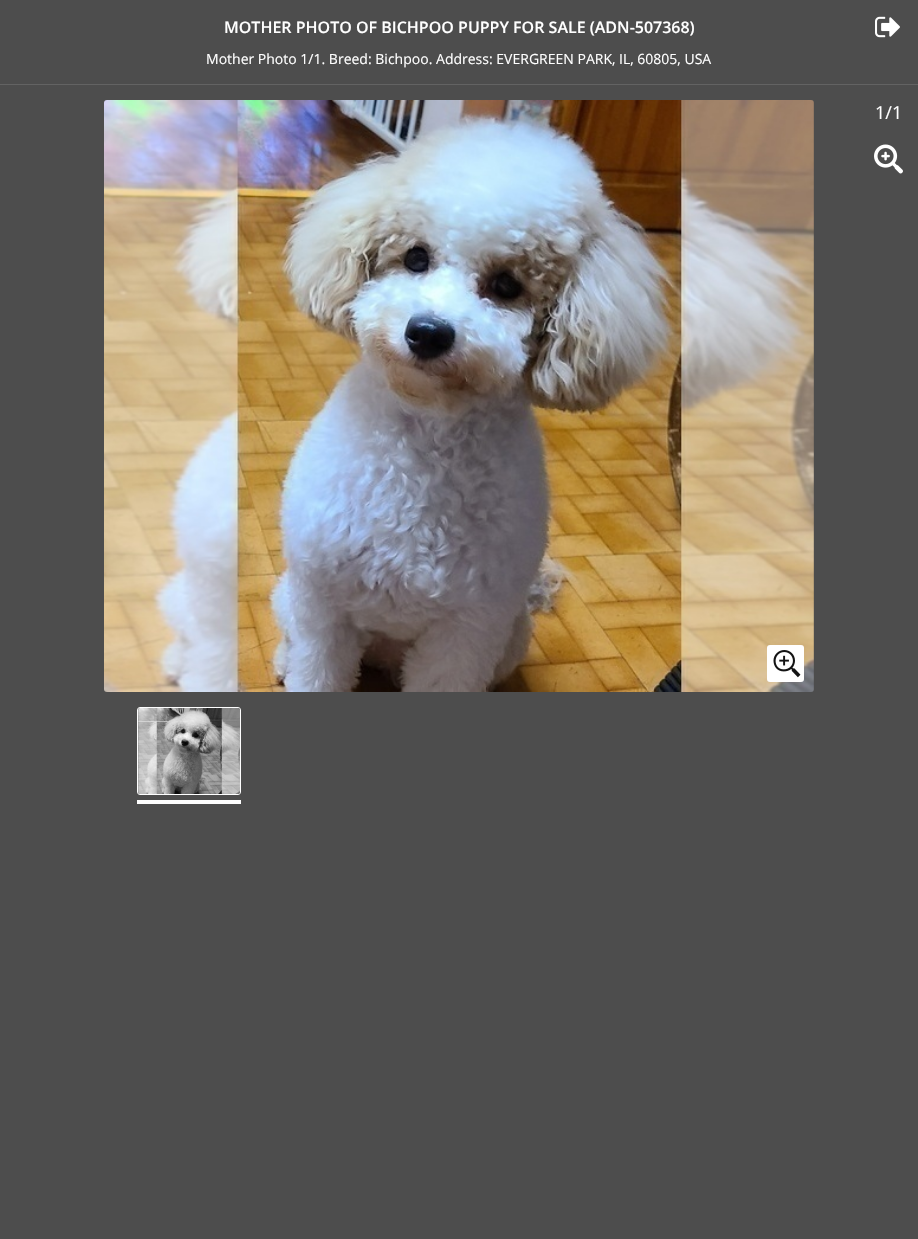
void draw(SkCanvas* canvas) {
    SkPaint paint;
    paint.setAntiAlias(true);
    canvas->clear(0xFF4D4D4D);
    paint.setColor(0xFF636363);
    canvas->drawRect(SkRect::MakeXYWH(0, 84, 918, 1), paint);
    SkFont font1(fontMgr->matchFamilyStyle("Open Sans", SkFontStyle(600, SkFontStyle::kNormal_Width, SkFontStyle::kUpright_Slant)), 16);
    font1.setSubpixel(true);
    paint.setColor(0xFFFFFFFF);
    canvas->drawString("MOTHER PHOTO OF BICHPOO PUPPY FOR SALE (ADN-507368)", 224, 33, font1, paint);
    canvas->drawImageRect(SkImages::DeferredFromEncodedData(SkData::MakeFromFileName("img1.png")), SkRect::MakeXYWH(875, 16, 25, 22), SkSamplingOptions());
    SkFont font2(fontMgr->matchFamilyStyle("Open Sans", SkFontStyle::Normal()), 14);
    font2.setSubpixel(true);
    canvas->drawString("Mother Photo 1/1. Breed: Bichpoo. Address: EVERGREEN PARK, IL, 60805, USA", 206, 64, font2, paint);
    canvas->drawImageRect(SkImages::DeferredFromEncodedData(SkData::MakeFromFileName("img2.png")), SkRect::MakeXYWH(104, 100, 710, 592), SkSamplingOptions());
    canvas->drawRoundRect(SkRect::MakeXYWH(767, 645, 37, 37), 3, 3, paint);
    canvas->drawImageRect(SkImages::DeferredFromEncodedData(SkData::MakeFromFileName("img3.png")), SkRect::MakeXYWH(773, 650, 28, 28), SkSamplingOptions());
    SkFont font3(fontMgr->matchFamilyStyle("Open Sans", SkFontStyle::Normal()), 18);
    font3.setSubpixel(true);
    canvas->drawString("1/1", 875, 119, font3, paint);
    canvas->drawImageRect(SkImages::DeferredFromEncodedData(SkData::MakeFromFileName("img4.png")), SkRect::MakeXYWH(874, 144, 29, 30), SkSamplingOptions());
    paint.setStyle(SkPaint::kStroke_Style);
    paint.setStrokeWidth(1);
    canvas->drawRoundRect(SkRect::MakeXYWH(137.5f, 707.5f, 103, 87), 2.5f, 2.5f, paint);
    canvas->drawImageRect(SkImages::DeferredFromEncodedData(SkData::MakeFromFileName("img5.png")), SkRect::MakeXYWH(138, 708, 102, 86), SkSamplingOptions());
    paint.setStyle(SkPaint::kFill_Style);
    canvas->drawRect(SkRect::MakeXYWH(137, 800, 104, 4), paint);
}
